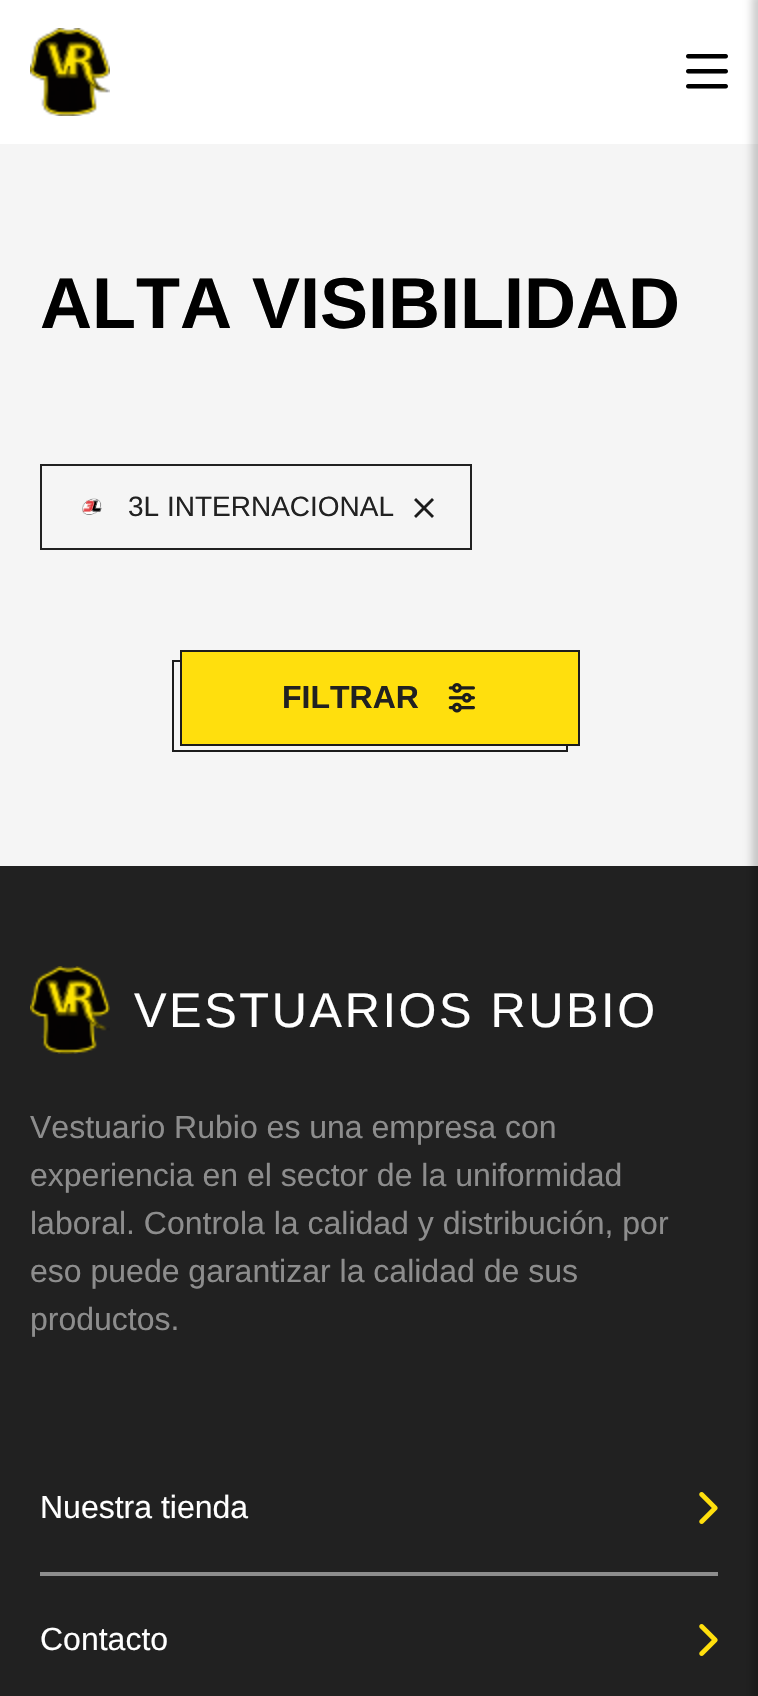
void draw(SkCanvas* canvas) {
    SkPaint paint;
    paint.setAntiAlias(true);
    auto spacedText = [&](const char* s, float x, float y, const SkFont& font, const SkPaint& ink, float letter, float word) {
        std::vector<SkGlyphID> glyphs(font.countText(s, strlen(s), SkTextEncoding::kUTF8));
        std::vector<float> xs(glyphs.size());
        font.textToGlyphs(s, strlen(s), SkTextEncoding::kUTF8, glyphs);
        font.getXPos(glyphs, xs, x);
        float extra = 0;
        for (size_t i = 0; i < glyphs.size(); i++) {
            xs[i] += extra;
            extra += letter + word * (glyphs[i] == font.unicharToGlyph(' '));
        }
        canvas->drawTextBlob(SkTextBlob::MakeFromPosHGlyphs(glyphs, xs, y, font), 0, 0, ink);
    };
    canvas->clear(0xFFF5F5F5);
    paint.setColor(0xFFFFFFFF);
    canvas->drawRect(SkRect::MakeXYWH(0, 0, 758, 144), paint);
    canvas->drawImageRect(SkImages::DeferredFromEncodedData(SkData::MakeFromFileName("img1.png")), SkRect::MakeXYWH(30, 28, 80, 88), SkSamplingOptions());
    canvas->drawImageRect(SkImages::DeferredFromEncodedData(SkData::MakeFromFileName("img2.png")), SkRect::MakeXYWH(686, 54, 42, 35), SkSamplingOptions());
    SkFont font1(fontMgr->matchFamilyStyle("Liberation Sans", SkFontStyle::Bold()), 72);
    font1.setSubpixel(true);
    paint.setColor(0xFF000000);
    canvas->drawString("ALTA VISIBILIDAD", 40, 328, font1, paint);
    paint.setColor(0xFF212121);
    canvas->drawRect(SkRect::MakeXYWH(0, 866, 758, 830), paint);
    paint.setColor(0x33000000);
    paint.setMaskFilter(SkMaskFilter::MakeBlur(kNormal_SkBlurStyle, 4));
    canvas->drawRect(SkRect::MakeXYWH(752, -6, 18, 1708), paint);
    paint.setMaskFilter(nullptr);
    paint.setStyle(SkPaint::kStroke_Style);
    paint.setStrokeWidth(2);
    paint.setColor(0xFF212121);
    canvas->drawRect(SkRect::MakeXYWH(41, 465, 430, 84), paint);
    canvas->drawImageRect(SkImages::DeferredFromEncodedData(SkData::MakeFromFileName("img3.png")), SkRect::MakeXYWH(82, 498, 20, 17), SkSamplingOptions());
    SkFont font2(fontMgr->matchFamilyStyle("Liberation Sans", SkFontStyle::Normal()), 28);
    font2.setSubpixel(true);
    paint.setStyle(SkPaint::kFill_Style);
    canvas->drawString("3L INTERNACIONAL", 128, 516, font2, paint);
    canvas->drawImageRect(SkImages::DeferredFromEncodedData(SkData::MakeFromFileName("img4.png")), SkRect::MakeXYWH(414, 498, 20, 20), SkSamplingOptions());
    paint.setStyle(SkPaint::kStroke_Style);
    paint.setColor(0xFF1C1C1C);
    canvas->drawRect(SkRect::MakeXYWH(173, 661, 394, 90), paint);
    paint.setStyle(SkPaint::kFill_Style);
    paint.setColor(0xFFFFDF0D);
    canvas->drawRect(SkRect::MakeXYWH(181, 651, 398, 94), paint);
    paint.setStyle(SkPaint::kStroke_Style);
    paint.setColor(0xFF1C1C1C);
    canvas->drawRect(SkRect::MakeXYWH(181, 651, 398, 94), paint);
    SkFont font3(fontMgr->matchFamilyStyle("Liberation Sans", SkFontStyle::Bold()), 32);
    font3.setSubpixel(true);
    paint.setStyle(SkPaint::kFill_Style);
    paint.setColor(0xFF212121);
    canvas->drawString("FILTRAR", 282, 708, font3, paint);
    canvas->drawImageRect(SkImages::DeferredFromEncodedData(SkData::MakeFromFileName("img5.png")), SkRect::MakeXYWH(448, 683, 27, 30), SkSamplingOptions());
    canvas->drawImageRect(SkImages::DeferredFromEncodedData(SkData::MakeFromFileName("img6.png")), SkRect::MakeXYWH(30, 966, 80, 88), SkSamplingOptions());
    SkFont font4(fontMgr->matchFamilyStyle("Liberation Sans", SkFontStyle::Normal()), 48.75f);
    font4.setSubpixel(true);
    paint.setColor(0xFFFFFFFF);
    spacedText("VESTUARIOS RUBIO", 134, 1027, font4, paint, 2.6f, 0);
    SkFont font5(fontMgr->matchFamilyStyle("Liberation Sans", SkFontStyle::Normal()), 32);
    font5.setSubpixel(true);
    paint.setColor(0xFF8D8D8D);
    canvas->drawString("Vestuario Rubio es una empresa con", 30, 1138, font5, paint);
    canvas->drawString("experiencia en el sector de la uniformidad", 30, 1186, font5, paint);
    canvas->drawString("laboral. Controla la calidad y distribución, por", 30, 1234, font5, paint);
    canvas->drawString("eso puede garantizar la calidad de sus", 30, 1282, font5, paint);
    canvas->drawString("productos.", 30, 1330, font5, paint);
    paint.setColor(0xFFFFFFFF);
    canvas->drawString("Nuestra tienda", 40, 1518, font5, paint);
    canvas->drawImageRect(SkImages::DeferredFromEncodedData(SkData::MakeFromFileName("img7.png")), SkRect::MakeXYWH(699, 1492, 19, 32), SkSamplingOptions());
    paint.setColor(0xFF8D8D8D);
    canvas->drawRect(SkRect::MakeXYWH(40, 1572, 678, 4), paint);
    paint.setColor(0xFFFFFFFF);
    canvas->drawString("Contacto", 40, 1650, font5, paint);
    canvas->drawImageRect(SkImages::DeferredFromEncodedData(SkData::MakeFromFileName("img7.png")), SkRect::MakeXYWH(699, 1624, 19, 32), SkSamplingOptions());
}
